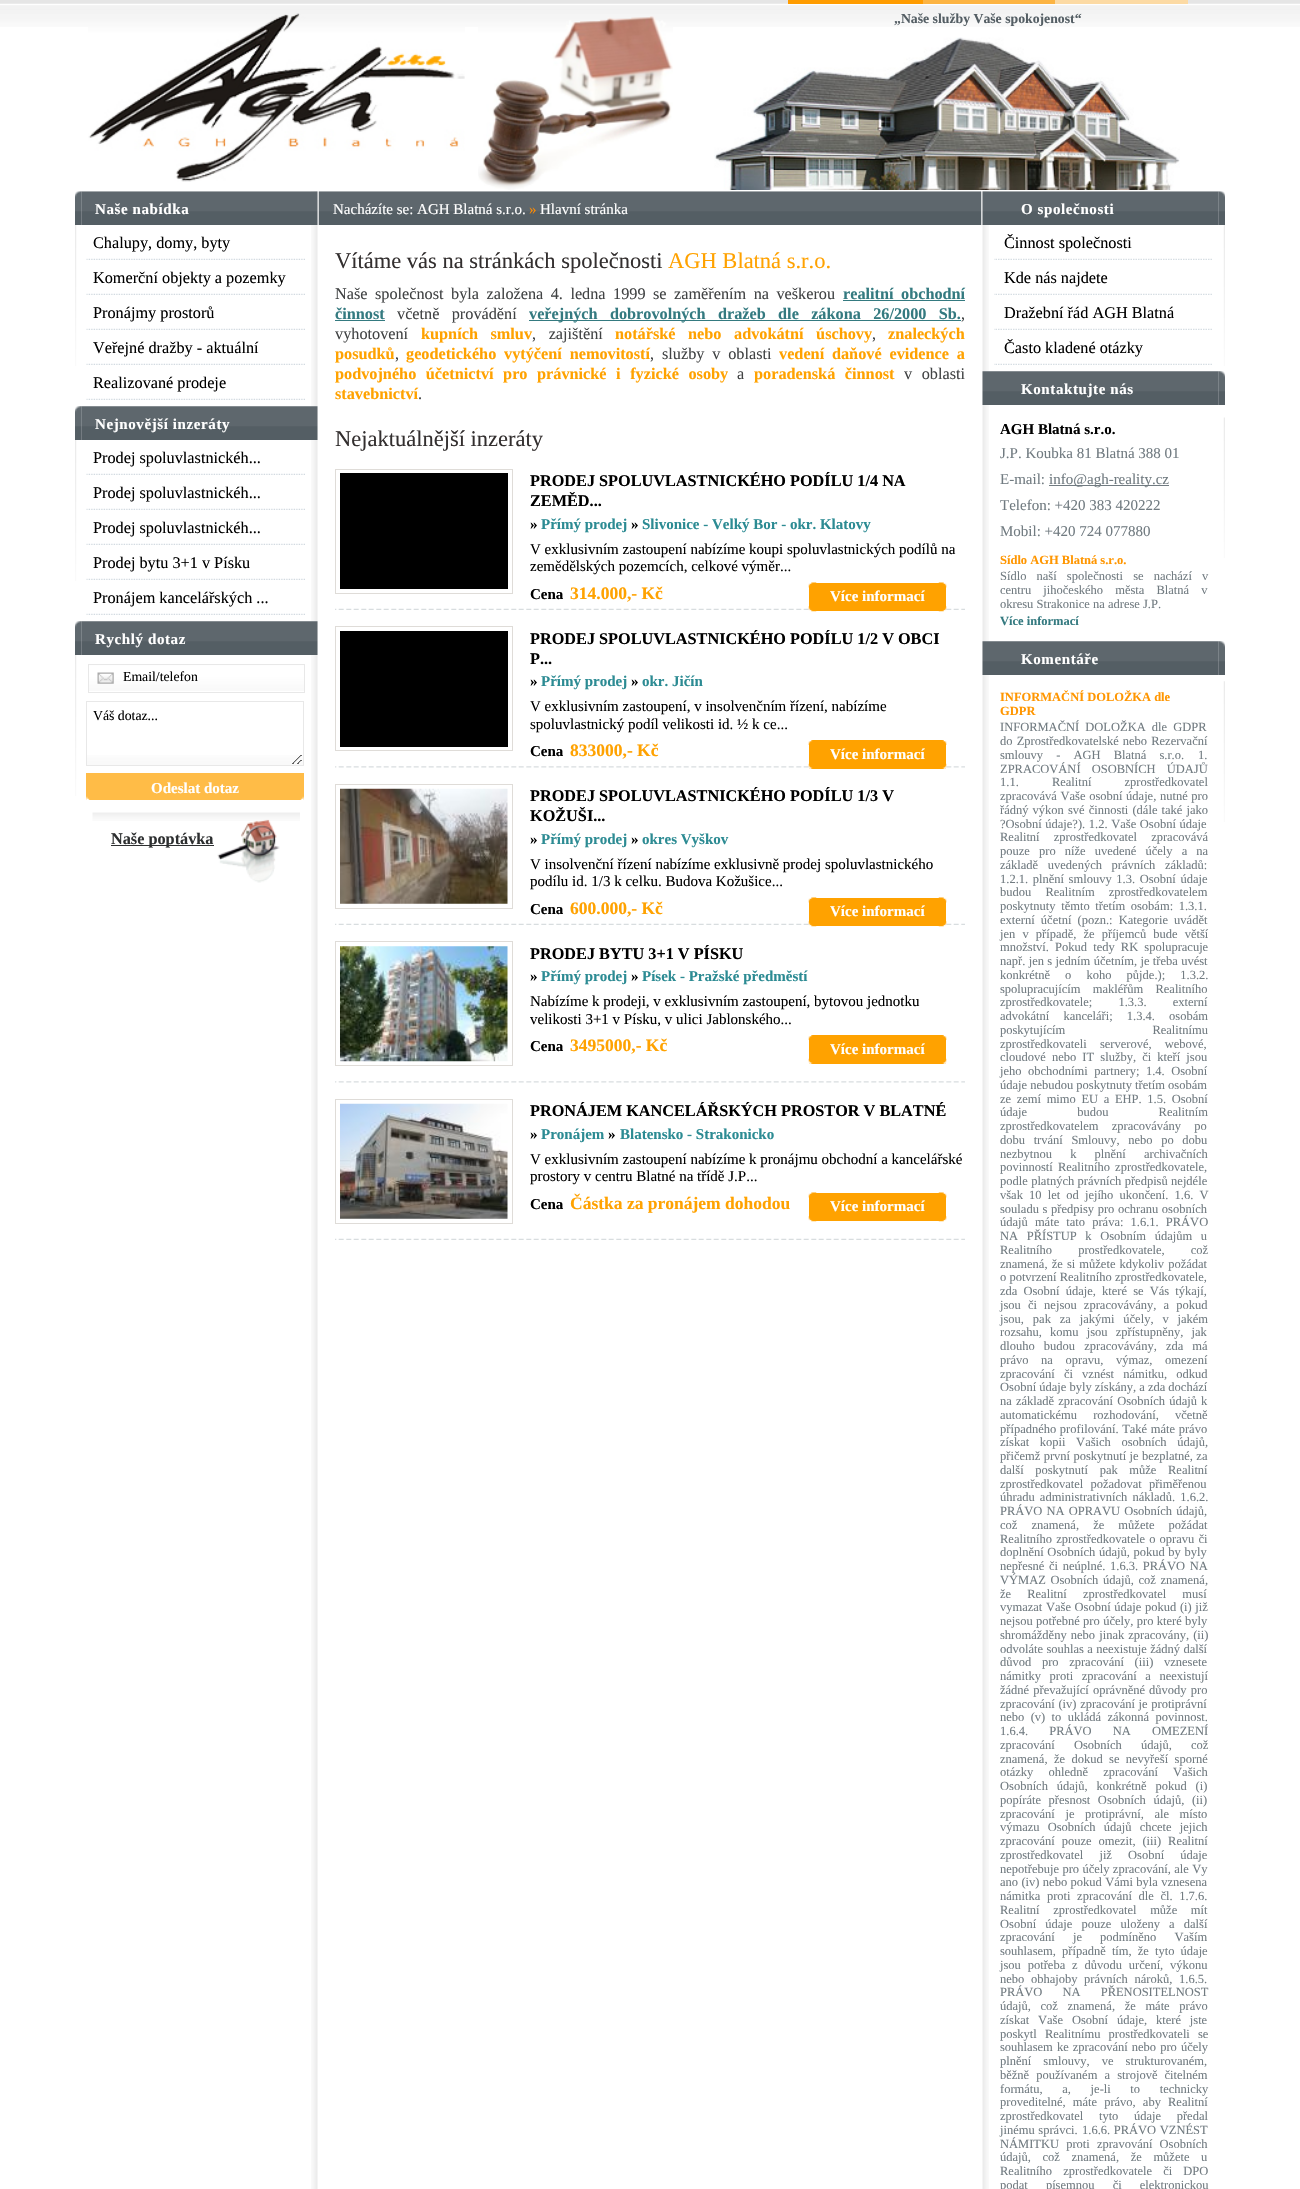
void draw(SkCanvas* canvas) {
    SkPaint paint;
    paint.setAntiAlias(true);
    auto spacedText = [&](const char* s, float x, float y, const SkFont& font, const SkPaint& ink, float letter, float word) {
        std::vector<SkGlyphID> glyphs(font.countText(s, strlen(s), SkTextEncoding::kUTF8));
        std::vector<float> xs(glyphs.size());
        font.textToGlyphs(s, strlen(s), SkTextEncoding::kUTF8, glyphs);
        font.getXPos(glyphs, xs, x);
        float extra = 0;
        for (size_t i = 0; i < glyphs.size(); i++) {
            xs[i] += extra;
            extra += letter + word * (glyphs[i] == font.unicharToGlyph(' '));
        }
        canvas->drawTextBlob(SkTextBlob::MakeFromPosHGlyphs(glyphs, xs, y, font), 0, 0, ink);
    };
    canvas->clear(0xFFFFFFFF);
    canvas->drawImageRect(SkImages::DeferredFromEncodedData(SkData::MakeFromFileName("img1.png")), SkRect::MakeXYWH(0, 0, 1300, 27), SkSamplingOptions());
    paint.setColor(0xFFFF9C00);
    canvas->drawRect(SkRect::MakeXYWH(788, 0, 135, 4), paint);
    paint.setColor(0xFFFCB443);
    canvas->drawRect(SkRect::MakeXYWH(923, 0, 132, 4), paint);
    paint.setColor(0xFFFCDAA4);
    canvas->drawRect(SkRect::MakeXYWH(1055, 0, 133, 4), paint);
    canvas->drawImageRect(SkImages::DeferredFromEncodedData(SkData::MakeFromFileName("img2.png")), SkRect::MakeXYWH(88, 13, 377, 169), SkSamplingOptions());
    canvas->drawImageRect(SkImages::DeferredFromEncodedData(SkData::MakeFromFileName("img3.png")), SkRect::MakeXYWH(478, 16, 195, 174), SkSamplingOptions());
    SkFont font1(fontMgr->matchFamilyStyle("Liberation Serif", SkFontStyle::Bold()), 13.75f);
    font1.setSubpixel(true);
    paint.setColor(0xFF545E64);
    canvas->drawString("„Naše služby Vaše spokojenost“", 894, 23, font1, paint);
    canvas->drawImageRect(SkImages::DeferredFromEncodedData(SkData::MakeFromFileName("img4.png")), SkRect::MakeXYWH(714, 37, 466, 153), SkSamplingOptions());
    canvas->drawImageRect(SkImages::DeferredFromEncodedData(SkData::MakeFromFileName("img5.png")), SkRect::MakeXYWH(311, 191, 678, 1998), SkSamplingOptions());
    canvas->drawImageRect(SkImages::DeferredFromEncodedData(SkData::MakeFromFileName("img6.png")), SkRect::MakeXYWH(75, 191, 7, 34), SkSamplingOptions());
    canvas->drawImageRect(SkImages::DeferredFromEncodedData(SkData::MakeFromFileName("img7.png")), SkRect::MakeXYWH(81, 191, 237, 34), SkSamplingOptions());
    SkFont font2(fontMgr->matchFamilyStyle("Liberation Serif", SkFontStyle::Bold()), 15);
    font2.setSubpixel(true);
    paint.setColor(0xFFFFFFFF);
    spacedText("Naše nabídka", 95, 214, font2, paint, 0.6f, 0);
    canvas->drawImageRect(SkImages::DeferredFromEncodedData(SkData::MakeFromFileName("img8.png")), SkRect::MakeXYWH(75, 225, 2, 141), SkSamplingOptions());
    canvas->drawImageRect(SkImages::DeferredFromEncodedData(SkData::MakeFromFileName("img9.png")), SkRect::MakeXYWH(86, 258, 219, 2), SkSamplingOptions());
    SkFont font3(fontMgr->matchFamilyStyle("Liberation Serif", SkFontStyle::Normal()), 16.25f);
    font3.setSubpixel(true);
    paint.setColor(0xFF000000);
    canvas->drawString("Chalupy, domy, byty", 93, 248, font3, paint);
    canvas->drawImageRect(SkImages::DeferredFromEncodedData(SkData::MakeFromFileName("img9.png")), SkRect::MakeXYWH(86, 293, 219, 2), SkSamplingOptions());
    canvas->drawString("Komerční objekty a pozemky", 93, 283, font3, paint);
    canvas->drawImageRect(SkImages::DeferredFromEncodedData(SkData::MakeFromFileName("img9.png")), SkRect::MakeXYWH(86, 328, 219, 2), SkSamplingOptions());
    canvas->drawString("Pronájmy prostorů", 93, 318, font3, paint);
    canvas->drawImageRect(SkImages::DeferredFromEncodedData(SkData::MakeFromFileName("img9.png")), SkRect::MakeXYWH(86, 363, 219, 2), SkSamplingOptions());
    canvas->drawString("Veřejné dražby - aktuální", 93, 353, font3, paint);
    canvas->drawImageRect(SkImages::DeferredFromEncodedData(SkData::MakeFromFileName("img9.png")), SkRect::MakeXYWH(86, 398, 219, 2), SkSamplingOptions());
    canvas->drawString("Realizované prodeje", 93, 388, font3, paint);
    canvas->drawImageRect(SkImages::DeferredFromEncodedData(SkData::MakeFromFileName("img10.png")), SkRect::MakeXYWH(75, 406, 7, 34), SkSamplingOptions());
    canvas->drawImageRect(SkImages::DeferredFromEncodedData(SkData::MakeFromFileName("img11.png")), SkRect::MakeXYWH(81, 406, 237, 34), SkSamplingOptions());
    paint.setColor(0xFFFFFFFF);
    spacedText("Nejnovější inzeráty", 95, 429, font2, paint, 0.6f, 0);
    canvas->drawImageRect(SkImages::DeferredFromEncodedData(SkData::MakeFromFileName("img8.png")), SkRect::MakeXYWH(75, 440, 2, 141), SkSamplingOptions());
    canvas->drawImageRect(SkImages::DeferredFromEncodedData(SkData::MakeFromFileName("img9.png")), SkRect::MakeXYWH(86, 473, 219, 2), SkSamplingOptions());
    paint.setColor(0xFF000000);
    canvas->drawString("Prodej spoluvlastnickéh...", 93, 463, font3, paint);
    canvas->drawImageRect(SkImages::DeferredFromEncodedData(SkData::MakeFromFileName("img9.png")), SkRect::MakeXYWH(86, 508, 219, 2), SkSamplingOptions());
    canvas->drawString("Prodej spoluvlastnickéh...", 93, 498, font3, paint);
    canvas->drawImageRect(SkImages::DeferredFromEncodedData(SkData::MakeFromFileName("img9.png")), SkRect::MakeXYWH(86, 543, 219, 2), SkSamplingOptions());
    canvas->drawString("Prodej spoluvlastnickéh...", 93, 533, font3, paint);
    canvas->drawImageRect(SkImages::DeferredFromEncodedData(SkData::MakeFromFileName("img9.png")), SkRect::MakeXYWH(86, 578, 219, 2), SkSamplingOptions());
    canvas->drawString("Prodej bytu 3+1 v Písku", 93, 568, font3, paint);
    canvas->drawImageRect(SkImages::DeferredFromEncodedData(SkData::MakeFromFileName("img9.png")), SkRect::MakeXYWH(86, 613, 219, 2), SkSamplingOptions());
    canvas->drawString("Pronájem kancelářských ...", 93, 603, font3, paint);
    canvas->drawImageRect(SkImages::DeferredFromEncodedData(SkData::MakeFromFileName("img10.png")), SkRect::MakeXYWH(75, 621, 7, 34), SkSamplingOptions());
    canvas->drawImageRect(SkImages::DeferredFromEncodedData(SkData::MakeFromFileName("img11.png")), SkRect::MakeXYWH(81, 621, 237, 34), SkSamplingOptions());
    paint.setColor(0xFFFFFFFF);
    spacedText("Rychlý dotaz", 95, 644, font2, paint, 0.6f, 0);
    canvas->drawImageRect(SkImages::DeferredFromEncodedData(SkData::MakeFromFileName("img8.png")), SkRect::MakeXYWH(75, 655, 2, 141), SkSamplingOptions());
    canvas->drawImageRect(SkImages::DeferredFromEncodedData(SkData::MakeFromFileName("img12.png")), SkRect::MakeXYWH(89, 665, 215, 26), SkSamplingOptions());
    paint.setStyle(SkPaint::kStroke_Style);
    paint.setStrokeWidth(1);
    paint.setColor(0xFFE8E8E8);
    canvas->drawRect(SkRect::MakeXYWH(88.5f, 664.5f, 216, 28), paint);
    canvas->drawImageRect(SkImages::DeferredFromEncodedData(SkData::MakeFromFileName("img13.png")), SkRect::MakeXYWH(97, 672, 17, 12), SkSamplingOptions());
    SkFont font4(fontMgr->matchFamilyStyle("Liberation Serif", SkFontStyle::Normal()), 13.75f);
    font4.setSubpixel(true);
    paint.setStyle(SkPaint::kFill_Style);
    paint.setColor(0xFF000000);
    canvas->drawString("Email/telefon", 123, 681, font4, paint);
    canvas->drawImageRect(SkImages::DeferredFromEncodedData(SkData::MakeFromFileName("img14.png")), SkRect::MakeXYWH(87, 755, 216, 10), SkSamplingOptions());
    paint.setStyle(SkPaint::kStroke_Style);
    paint.setColor(0xFFE8E8E8);
    canvas->drawRect(SkRect::MakeXYWH(86.5f, 701.5f, 217, 64), paint);
    paint.setStyle(SkPaint::kFill_Style);
    paint.setColor(0xFF000000);
    canvas->drawString("Váš dotaz...", 93, 720, font4, paint);
    paint.setColor(0xFFFFBC47);
    canvas->drawRect(SkRect::MakeXYWH(86, 773, 218, 27), paint);
    paint.setColor(0xFFFFFFFF);
    canvas->drawString("Odeslat dotaz", 151, 793, font2, paint);
    canvas->drawImageRect(SkImages::DeferredFromEncodedData(SkData::MakeFromFileName("img15.png")), SkRect::MakeXYWH(300, 796, 4, 4), SkSamplingOptions());
    canvas->drawImageRect(SkImages::DeferredFromEncodedData(SkData::MakeFromFileName("img16.png")), SkRect::MakeXYWH(86, 796, 4, 4), SkSamplingOptions());
    canvas->drawImageRect(SkImages::DeferredFromEncodedData(SkData::MakeFromFileName("img17.png")), SkRect::MakeXYWH(92, 812, 208, 9), SkSamplingOptions());
    canvas->drawImageRect(SkImages::DeferredFromEncodedData(SkData::MakeFromFileName("img18.png")), SkRect::MakeXYWH(217, 819, 63, 64), SkSamplingOptions());
    paint.setColor(0xFF2D2F30);
    canvas->drawRect(SkRect::MakeXYWH(111, 845, 103, 1), paint);
    SkFont font5(fontMgr->matchFamilyStyle("Liberation Serif", SkFontStyle::Bold()), 16.25f);
    font5.setSubpixel(true);
    canvas->drawString("Naše poptávka", 111, 844, font5, paint);
    canvas->drawImageRect(SkImages::DeferredFromEncodedData(SkData::MakeFromFileName("img19.png")), SkRect::MakeXYWH(318, 191, 664, 34), SkSamplingOptions());
    SkFont font6(fontMgr->matchFamilyStyle("Liberation Serif", SkFontStyle::Normal()), 15);
    font6.setSubpixel(true);
    paint.setColor(0xFFFFFFFF);
    canvas->drawString("Nacházíte se: AGH Blatná s.r.o.", 333, 214, font6, paint);
    paint.setColor(0xFFFF8A00);
    canvas->drawString("»", 529, 214, font6, paint);
    paint.setColor(0xFFFFFFFF);
    canvas->drawString("Hlavní stránka", 540, 214, font6, paint);
    SkFont font7(fontMgr->matchFamilyStyle("Liberation Serif", SkFontStyle::Normal()), 22.5f);
    font7.setSubpixel(true);
    paint.setColor(0xFF332F2F);
    canvas->drawString("Vítáme vás na stránkách společnosti", 335, 268, font7, paint);
    paint.setColor(0xFFFFA200);
    canvas->drawString("AGH Blatná s.r.o.", 668, 268, font7, paint);
    paint.setColor(0xFF414344);
    spacedText("Naše společnost byla založena 4. ledna 1999 se zaměřením na veškerou", 335, 299, font3, paint, 0, 3.4f);
    paint.setColor(0xFF347A80);
    spacedText("realitní obchodní", 843, 299, font5, paint, 0, 3.4f);
    canvas->drawRect(SkRect::MakeXYWH(843, 300, 122, 1), paint);
    canvas->drawString("činnost", 335, 319, font5, paint);
    canvas->drawRect(SkRect::MakeXYWH(335, 320, 50, 1), paint);
    paint.setColor(0xFF414344);
    spacedText("včetně provádění", 397, 319, font3, paint, 0, 8.25f);
    paint.setColor(0xFF347A80);
    canvas->drawRect(SkRect::MakeXYWH(529, 320, 432, 1), paint);
    spacedText("veřejných dobrovolných dražeb dle zákona 26/2000 Sb.", 529, 319, font5, paint, 0, 8.25f);
    paint.setColor(0xFF414344);
    canvas->drawString(",", 961, 319, font3, paint);
    canvas->drawString("vyhotovení", 335, 339, font3, paint);
    paint.setColor(0xFFFFA200);
    spacedText("kupních smluv", 421, 339, font5, paint, 0, 8.5f);
    paint.setColor(0xFF414344);
    spacedText(", zajištění", 532, 339, font3, paint, 0, 8.5f);
    paint.setColor(0xFFFFA200);
    spacedText("notářské nebo advokátní úschovy", 615, 339, font5, paint, 0, 8.5f);
    paint.setColor(0xFF414344);
    canvas->drawString(",", 872, 339, font3, paint);
    paint.setColor(0xFFFFA200);
    canvas->drawString("znaleckých", 888, 339, font5, paint);
    canvas->drawString("posudků", 335, 359, font5, paint);
    paint.setColor(0xFF414344);
    canvas->drawString(",", 395, 359, font3, paint);
    paint.setColor(0xFFFFA200);
    spacedText("geodetického vytýčení nemovitostí", 406, 359, font5, paint, 0, 3.75f);
    paint.setColor(0xFF414344);
    canvas->drawString(",", 650, 359, font3, paint);
    spacedText("služby v oblasti", 662, 359, font3, paint, 0, 3.75f);
    paint.setColor(0xFFFFA200);
    spacedText("vedení daňové evidence a", 779, 359, font5, paint, 0, 3.75f);
    spacedText("podvojného účetnictví pro právnické i fyzické osoby", 335, 379, font5, paint, 0, 5.5f);
    paint.setColor(0xFF414344);
    canvas->drawString("a", 737, 379, font3, paint);
    paint.setColor(0xFFFFA200);
    spacedText("poradenská činnost", 754, 379, font5, paint, 0, 5.5f);
    paint.setColor(0xFF414344);
    spacedText("v oblasti", 904, 379, font3, paint, 0, 5.5f);
    paint.setColor(0xFFFFA200);
    canvas->drawString("stavebnictví", 335, 399, font5, paint);
    paint.setColor(0xFF414344);
    canvas->drawString(".", 418, 399, font3, paint);
    paint.setColor(0xFF332F2F);
    canvas->drawString("Nejaktuálnější inzeráty", 335, 446, font7, paint);
    canvas->drawImageRect(SkImages::DeferredFromEncodedData(SkData::MakeFromFileName("img20.png")), SkRect::MakeXYWH(335, 608, 630, 2), SkSamplingOptions());
    paint.setStyle(SkPaint::kStroke_Style);
    paint.setColor(0xFFDFDCD8);
    canvas->drawRect(SkRect::MakeXYWH(335.5f, 469.5f, 177, 124), paint);
    paint.setStyle(SkPaint::kFill_Style);
    paint.setColor(0xFF000000);
    canvas->drawRect(SkRect::MakeXYWH(340, 473, 168, 116), paint);
    canvas->drawString("PRODEJ SPOLUVLASTNICKÉHO PODÍLU 1/4 NA", 530, 486, font5, paint);
    canvas->drawString("ZEMĚD...", 530, 506, font5, paint);
    canvas->drawString("»", 530, 529, font2, paint);
    paint.setColor(0xFF2C8B93);
    canvas->drawString("Přímý prodej", 541, 529, font2, paint);
    paint.setColor(0xFF000000);
    canvas->drawString("»", 631, 529, font2, paint);
    paint.setColor(0xFF2C8B93);
    canvas->drawString("Slivonice - Velký Bor - okr. Klatovy", 642, 529, font2, paint);
    paint.setColor(0xFF000000);
    canvas->drawString("V exklusivním zastoupení nabízíme koupi spoluvlastnických podílů na", 530, 554, font6, paint);
    canvas->drawString("zemědělských pozemcích, celkové výměr...", 530, 571, font6, paint);
    canvas->drawString("Cena", 530, 599, font2, paint);
    SkFont font8(fontMgr->matchFamilyStyle("Liberation Serif", SkFontStyle::Bold()), 17.5f);
    font8.setSubpixel(true);
    paint.setColor(0xFFFFA200);
    canvas->drawString("314.000,- Kč", 570, 599, font8, paint);
    canvas->drawRect(SkRect::MakeXYWH(809, 583, 137, 28), paint);
    canvas->drawImageRect(SkImages::DeferredFromEncodedData(SkData::MakeFromFileName("img21.png")), SkRect::MakeXYWH(938, 582, 9, 6), SkSamplingOptions());
    canvas->drawImageRect(SkImages::DeferredFromEncodedData(SkData::MakeFromFileName("img22.png")), SkRect::MakeXYWH(808, 582, 9, 6), SkSamplingOptions());
    paint.setColor(0xFFFFFFFF);
    canvas->drawString("Více informací", 830, 601, font2, paint);
    canvas->drawImageRect(SkImages::DeferredFromEncodedData(SkData::MakeFromFileName("img23.png")), SkRect::MakeXYWH(938, 606, 9, 6), SkSamplingOptions());
    canvas->drawImageRect(SkImages::DeferredFromEncodedData(SkData::MakeFromFileName("img24.png")), SkRect::MakeXYWH(808, 606, 9, 6), SkSamplingOptions());
    canvas->drawImageRect(SkImages::DeferredFromEncodedData(SkData::MakeFromFileName("img25.png")), SkRect::MakeXYWH(335, 766, 630, 2), SkSamplingOptions());
    paint.setStyle(SkPaint::kStroke_Style);
    paint.setColor(0xFFDFDCD8);
    canvas->drawRect(SkRect::MakeXYWH(335.5f, 626.5f, 177, 124), paint);
    paint.setStyle(SkPaint::kFill_Style);
    paint.setColor(0xFF000000);
    canvas->drawRect(SkRect::MakeXYWH(340, 631, 168, 116), paint);
    canvas->drawString("PRODEJ SPOLUVLASTNICKÉHO PODÍLU 1/2 V OBCI", 530, 644, font5, paint);
    canvas->drawString("P...", 530, 664, font5, paint);
    canvas->drawString("»", 530, 686, font2, paint);
    paint.setColor(0xFF2C8B93);
    canvas->drawString("Přímý prodej", 541, 686, font2, paint);
    paint.setColor(0xFF000000);
    canvas->drawString("»", 631, 686, font2, paint);
    paint.setColor(0xFF2C8B93);
    canvas->drawString("okr. Jičín", 642, 686, font2, paint);
    paint.setColor(0xFF000000);
    canvas->drawString("V exklusivním zastoupení, v insolvenčním řízení, nabízíme", 530, 711, font6, paint);
    canvas->drawString("spoluvlastnický podíl velikosti id. ½ k ce...", 530, 729, font6, paint);
    canvas->drawString("Cena", 530, 756, font2, paint);
    paint.setColor(0xFFFFA200);
    canvas->drawString("833000,- Kč", 570, 756, font8, paint);
    canvas->drawRect(SkRect::MakeXYWH(809, 740, 137, 29), paint);
    canvas->drawImageRect(SkImages::DeferredFromEncodedData(SkData::MakeFromFileName("img26.png")), SkRect::MakeXYWH(942, 740, 5, 5), SkSamplingOptions());
    canvas->drawImageRect(SkImages::DeferredFromEncodedData(SkData::MakeFromFileName("img27.png")), SkRect::MakeXYWH(808, 740, 5, 5), SkSamplingOptions());
    paint.setColor(0xFFFFFFFF);
    canvas->drawString("Více informací", 830, 759, font2, paint);
    canvas->drawImageRect(SkImages::DeferredFromEncodedData(SkData::MakeFromFileName("img28.png")), SkRect::MakeXYWH(942, 763, 5, 6), SkSamplingOptions());
    canvas->drawImageRect(SkImages::DeferredFromEncodedData(SkData::MakeFromFileName("img29.png")), SkRect::MakeXYWH(808, 763, 5, 6), SkSamplingOptions());
    canvas->drawImageRect(SkImages::DeferredFromEncodedData(SkData::MakeFromFileName("img20.png")), SkRect::MakeXYWH(335, 923, 630, 2), SkSamplingOptions());
    paint.setStyle(SkPaint::kStroke_Style);
    paint.setColor(0xFFDFDCD8);
    canvas->drawRect(SkRect::MakeXYWH(335.5f, 784.5f, 177, 124), paint);
    canvas->drawImageRect(SkImages::DeferredFromEncodedData(SkData::MakeFromFileName("img30.png")), SkRect::MakeXYWH(340, 788, 168, 116), SkSamplingOptions());
    paint.setStyle(SkPaint::kFill_Style);
    paint.setColor(0xFF000000);
    canvas->drawString("PRODEJ SPOLUVLASTNICKÉHO PODÍLU 1/3 V", 530, 801, font5, paint);
    canvas->drawString("KOŽUŠI...", 530, 821, font5, paint);
    canvas->drawString("»", 530, 844, font2, paint);
    paint.setColor(0xFF2C8B93);
    canvas->drawString("Přímý prodej", 541, 844, font2, paint);
    paint.setColor(0xFF000000);
    canvas->drawString("»", 631, 844, font2, paint);
    paint.setColor(0xFF2C8B93);
    canvas->drawString("okres Vyškov", 642, 844, font2, paint);
    paint.setColor(0xFF000000);
    canvas->drawString("V insolvenční řízení nabízíme exklusivně prodej spoluvlastnického", 530, 869, font6, paint);
    canvas->drawString("podílu id. 1/3 k celku. Budova Kožušice...", 530, 886, font6, paint);
    canvas->drawString("Cena", 530, 914, font2, paint);
    paint.setColor(0xFFFFA200);
    canvas->drawString("600.000,- Kč", 570, 914, font8, paint);
    canvas->drawRect(SkRect::MakeXYWH(809, 898, 137, 28), paint);
    canvas->drawImageRect(SkImages::DeferredFromEncodedData(SkData::MakeFromFileName("img21.png")), SkRect::MakeXYWH(938, 897, 9, 6), SkSamplingOptions());
    canvas->drawImageRect(SkImages::DeferredFromEncodedData(SkData::MakeFromFileName("img22.png")), SkRect::MakeXYWH(808, 897, 9, 6), SkSamplingOptions());
    paint.setColor(0xFFFFFFFF);
    canvas->drawString("Více informací", 830, 916, font2, paint);
    canvas->drawImageRect(SkImages::DeferredFromEncodedData(SkData::MakeFromFileName("img23.png")), SkRect::MakeXYWH(938, 921, 9, 6), SkSamplingOptions());
    canvas->drawImageRect(SkImages::DeferredFromEncodedData(SkData::MakeFromFileName("img24.png")), SkRect::MakeXYWH(808, 921, 9, 6), SkSamplingOptions());
    canvas->drawImageRect(SkImages::DeferredFromEncodedData(SkData::MakeFromFileName("img25.png")), SkRect::MakeXYWH(335, 1081, 630, 2), SkSamplingOptions());
    paint.setStyle(SkPaint::kStroke_Style);
    paint.setColor(0xFFDFDCD8);
    canvas->drawRect(SkRect::MakeXYWH(335.5f, 941.5f, 177, 124), paint);
    canvas->drawImageRect(SkImages::DeferredFromEncodedData(SkData::MakeFromFileName("img31.png")), SkRect::MakeXYWH(340, 946, 168, 116), SkSamplingOptions());
    paint.setStyle(SkPaint::kFill_Style);
    paint.setColor(0xFF000000);
    canvas->drawString("PRODEJ BYTU 3+1 V PÍSKU", 530, 959, font5, paint);
    canvas->drawString("»", 530, 981, font2, paint);
    paint.setColor(0xFF2C8B93);
    canvas->drawString("Přímý prodej", 541, 981, font2, paint);
    paint.setColor(0xFF000000);
    canvas->drawString("»", 631, 981, font2, paint);
    paint.setColor(0xFF2C8B93);
    canvas->drawString("Písek - Pražské předměstí", 642, 981, font2, paint);
    paint.setColor(0xFF000000);
    canvas->drawString("Nabízíme k prodeji, v exklusivním zastoupení, bytovou jednotku", 530, 1006, font6, paint);
    canvas->drawString("velikosti 3+1 v Písku, v ulici Jablonského...", 530, 1024, font6, paint);
    canvas->drawString("Cena", 530, 1051, font2, paint);
    paint.setColor(0xFFFFA200);
    canvas->drawString("3495000,- Kč", 570, 1051, font8, paint);
    canvas->drawRect(SkRect::MakeXYWH(809, 1035, 137, 29), paint);
    canvas->drawImageRect(SkImages::DeferredFromEncodedData(SkData::MakeFromFileName("img26.png")), SkRect::MakeXYWH(942, 1035, 5, 5), SkSamplingOptions());
    canvas->drawImageRect(SkImages::DeferredFromEncodedData(SkData::MakeFromFileName("img27.png")), SkRect::MakeXYWH(808, 1035, 5, 5), SkSamplingOptions());
    paint.setColor(0xFFFFFFFF);
    canvas->drawString("Více informací", 830, 1054, font2, paint);
    canvas->drawImageRect(SkImages::DeferredFromEncodedData(SkData::MakeFromFileName("img32.png")), SkRect::MakeXYWH(942, 1058, 5, 6), SkSamplingOptions());
    canvas->drawImageRect(SkImages::DeferredFromEncodedData(SkData::MakeFromFileName("img33.png")), SkRect::MakeXYWH(808, 1058, 5, 6), SkSamplingOptions());
    canvas->drawImageRect(SkImages::DeferredFromEncodedData(SkData::MakeFromFileName("img20.png")), SkRect::MakeXYWH(335, 1238, 630, 2), SkSamplingOptions());
    paint.setStyle(SkPaint::kStroke_Style);
    paint.setColor(0xFFDFDCD8);
    canvas->drawRect(SkRect::MakeXYWH(335.5f, 1099.5f, 177, 124), paint);
    canvas->drawImageRect(SkImages::DeferredFromEncodedData(SkData::MakeFromFileName("img34.png")), SkRect::MakeXYWH(340, 1103, 168, 116), SkSamplingOptions());
    paint.setStyle(SkPaint::kFill_Style);
    paint.setColor(0xFF000000);
    canvas->drawString("PRONÁJEM KANCELÁŘSKÝCH PROSTOR V BLATNÉ", 530, 1116, font5, paint);
    canvas->drawString("»", 530, 1139, font2, paint);
    paint.setColor(0xFF2C8B93);
    canvas->drawString("Pronájem", 541, 1139, font2, paint);
    paint.setColor(0xFF000000);
    canvas->drawString("»", 608, 1139, font2, paint);
    paint.setColor(0xFF2C8B93);
    canvas->drawString("Blatensko - Strakonicko", 620, 1139, font2, paint);
    paint.setColor(0xFF000000);
    canvas->drawString("V exklusivním zastoupení nabízíme k pronájmu obchodní a kancelářské", 530, 1164, font6, paint);
    canvas->drawString("prostory v centru Blatné na třídě J.P...", 530, 1181, font6, paint);
    canvas->drawString("Cena", 530, 1209, font2, paint);
    paint.setColor(0xFFFFA200);
    canvas->drawString("Částka za pronájem dohodou", 570, 1209, font8, paint);
    canvas->drawRect(SkRect::MakeXYWH(809, 1193, 137, 28), paint);
    canvas->drawImageRect(SkImages::DeferredFromEncodedData(SkData::MakeFromFileName("img21.png")), SkRect::MakeXYWH(938, 1192, 9, 6), SkSamplingOptions());
    canvas->drawImageRect(SkImages::DeferredFromEncodedData(SkData::MakeFromFileName("img22.png")), SkRect::MakeXYWH(808, 1192, 9, 6), SkSamplingOptions());
    paint.setColor(0xFFFFFFFF);
    canvas->drawString("Více informací", 830, 1211, font2, paint);
    canvas->drawImageRect(SkImages::DeferredFromEncodedData(SkData::MakeFromFileName("img35.png")), SkRect::MakeXYWH(938, 1216, 9, 6), SkSamplingOptions());
    canvas->drawImageRect(SkImages::DeferredFromEncodedData(SkData::MakeFromFileName("img36.png")), SkRect::MakeXYWH(808, 1216, 9, 6), SkSamplingOptions());
    canvas->drawImageRect(SkImages::DeferredFromEncodedData(SkData::MakeFromFileName("img38.png")), SkRect::MakeXYWH(1218, 191, 7, 34), SkSamplingOptions());
    canvas->drawImageRect(SkImages::DeferredFromEncodedData(SkData::MakeFromFileName("img37.png")), SkRect::MakeXYWH(982, 191, 237, 34), SkSamplingOptions());
    spacedText("O společnosti", 1021, 214, font2, paint, 0.6f, 0);
    canvas->drawImageRect(SkImages::DeferredFromEncodedData(SkData::MakeFromFileName("img39.png")), SkRect::MakeXYWH(1223, 225, 2, 141), SkSamplingOptions());
    canvas->drawImageRect(SkImages::DeferredFromEncodedData(SkData::MakeFromFileName("img40.png")), SkRect::MakeXYWH(994, 258, 218, 2), SkSamplingOptions());
    paint.setColor(0xFF000000);
    canvas->drawString("Činnost společnosti", 1004, 248, font3, paint);
    canvas->drawImageRect(SkImages::DeferredFromEncodedData(SkData::MakeFromFileName("img40.png")), SkRect::MakeXYWH(994, 293, 218, 2), SkSamplingOptions());
    canvas->drawString("Kde nás najdete", 1004, 283, font3, paint);
    canvas->drawImageRect(SkImages::DeferredFromEncodedData(SkData::MakeFromFileName("img40.png")), SkRect::MakeXYWH(994, 328, 218, 2), SkSamplingOptions());
    canvas->drawString("Dražební řád AGH Blatná", 1004, 318, font3, paint);
    canvas->drawImageRect(SkImages::DeferredFromEncodedData(SkData::MakeFromFileName("img40.png")), SkRect::MakeXYWH(994, 363, 218, 2), SkSamplingOptions());
    canvas->drawString("Často kladené otázky", 1004, 353, font3, paint);
    canvas->drawImageRect(SkImages::DeferredFromEncodedData(SkData::MakeFromFileName("img42.png")), SkRect::MakeXYWH(1218, 371, 7, 34), SkSamplingOptions());
    canvas->drawImageRect(SkImages::DeferredFromEncodedData(SkData::MakeFromFileName("img41.png")), SkRect::MakeXYWH(982, 371, 237, 34), SkSamplingOptions());
    paint.setColor(0xFFFFFFFF);
    spacedText("Kontaktujte nás", 1021, 394, font2, paint, 0.6f, 0);
    canvas->drawImageRect(SkImages::DeferredFromEncodedData(SkData::MakeFromFileName("img43.png")), SkRect::MakeXYWH(1223, 417, 2, 141), SkSamplingOptions());
    paint.setColor(0xFF000000);
    canvas->drawString("AGH Blatná s.r.o.", 1000, 434, font2, paint);
    paint.setColor(0xFF717B81);
    canvas->drawString("J.P. Koubka 81 Blatná 388 01", 1000, 458, font6, paint);
    canvas->drawString("E-mail:", 1000, 484, font6, paint);
    canvas->drawRect(SkRect::MakeXYWH(1049, 485, 120, 1), paint);
    canvas->drawString("info@agh-reality.cz", 1049, 484, font6, paint);
    canvas->drawString("Telefon: +420 383 420222", 1000, 510, font6, paint);
    canvas->drawString("Mobil: +420 724 077880", 1000, 536, font6, paint);
    SkFont font9(fontMgr->matchFamilyStyle("Liberation Serif", SkFontStyle::Bold()), 12.5f);
    font9.setSubpixel(true);
    paint.setColor(0xFFFF9600);
    canvas->drawString("Sídlo AGH Blatná s.r.o.", 1000, 564, font9, paint);
    SkFont font10(fontMgr->matchFamilyStyle("Liberation Serif", SkFontStyle::Normal()), 12.5f);
    font10.setSubpixel(true);
    paint.setColor(0xFF717B81);
    spacedText("Sídlo naší společnosti se nachází v", 1000, 580, font10, paint, 0, 7);
    spacedText("centru jihočeského města Blatná v", 1000, 594, font10, paint, 0, 9);
    canvas->drawString("okresu Strakonice na adrese J.P.", 1000, 608, font10, paint);
    paint.setColor(0xFF347A80);
    canvas->drawString("Více informací", 1000, 625, font9, paint);
    canvas->drawImageRect(SkImages::DeferredFromEncodedData(SkData::MakeFromFileName("img42.png")), SkRect::MakeXYWH(1218, 641, 7, 34), SkSamplingOptions());
    canvas->drawImageRect(SkImages::DeferredFromEncodedData(SkData::MakeFromFileName("img41.png")), SkRect::MakeXYWH(982, 641, 237, 34), SkSamplingOptions());
    paint.setColor(0xFFFFFFFF);
    spacedText("Komentáře", 1021, 664, font2, paint, 0.6f, 0);
    canvas->drawImageRect(SkImages::DeferredFromEncodedData(SkData::MakeFromFileName("img44.png")), SkRect::MakeXYWH(1223, 681, 2, 141), SkSamplingOptions());
    paint.setColor(0xFFFF9600);
    canvas->drawString("INFORMAČNÍ DOLOŽKA dle", 1000, 701, font9, paint);
    canvas->drawString("GDPR", 1000, 715, font9, paint);
    paint.setColor(0xFF717B81);
    spacedText("INFORMAČNÍ DOLOŽKA dle GDPR", 1000, 731, font10, paint, 0, 3);
    spacedText("do Zprostředkovatelské nebo Rezervační", 1000, 745, font10, paint, 0, 1);
    spacedText("smlouvy - AGH Blatná s.r.o.", 1000, 759, font10, paint, 0, 10);
    canvas->drawString("1.", 1198, 759, font10, paint);
    spacedText("ZPRACOVÁNÍ OSOBNÍCH ÚDAJŮ", 1000, 773, font10, paint, 0, 8);
    spacedText("1.1. Realitní zprostředkovatel", 1000, 786, font10, paint, 0, 30);
    spacedText("zpracovává Vaše osobní údaje, nutné pro", 1000, 800, font10, paint, 0, 0.5f);
    spacedText("řádný výkon své činnosti (dále také jako", 1000, 814, font10, paint, 0, 1);
    spacedText("?Osobní údaje?). 1.2. Vaše Osobní údaje", 1000, 828, font10, paint, 0, 0.5f);
    spacedText("Realitní zprostředkovatel zpracovává", 1000, 841, font10, paint, 0, 11);
    spacedText("pouze pro níže uvedené účely a na", 1000, 855, font10, paint, 0, 6);
    spacedText("základě uvedených právních základů:", 1000, 869, font10, paint, 0, 6.5f);
    spacedText("1.2.1. plnění smlouvy 1.3. Osobní údaje", 1000, 883, font10, paint, 0, 1.5f);
    spacedText("budou Realitním zprostředkovatelem", 1000, 896, font10, paint, 0, 11);
    spacedText("poskytnuty těmto třetím osobám: 1.3.1.", 1000, 910, font10, paint, 0, 2.5f);
    spacedText("externí účetní (pozn.: Kategorie uvádět", 1000, 924, font10, paint, 0, 3);
    spacedText("jen v případě, že příjemců bude větší", 1000, 938, font10, paint, 0, 4);
    spacedText("množství. Pokud tedy RK spolupracuje", 1000, 951, font10, paint, 0, 3);
    spacedText("např. jen s jedním účetním, je třeba uvést", 1000, 965, font10, paint, 0, 0.25f);
    spacedText("konkrétně o koho půjde.); 1.3.2.", 1000, 979, font10, paint, 0, 12);
    spacedText("spolupracujícím makléřům Realitního", 1000, 993, font10, paint, 0, 9);
    spacedText("zprostředkovatele; 1.3.3. externí", 1000, 1006, font10, paint, 0, 23);
    spacedText("advokátní kanceláři; 1.3.4. osobám", 1000, 1020, font10, paint, 0, 11);
    spacedText("poskytujícím Realitnímu", 1000, 1034, font10, paint, 0, 84);
    spacedText("zprostředkovateli serverové, webové,", 1000, 1048, font10, paint, 0, 10);
    spacedText("cloudové nebo IT služby, či kteří jsou", 1000, 1061, font10, paint, 0, 3);
    spacedText("jeho obchodními partnery; 1.4. Osobní", 1000, 1075, font10, paint, 0, 3.4f);
    canvas->drawString("údaje nebudou poskytnuty třetím osobám", 1000, 1089, font10, paint);
    spacedText("ze zemí mimo EU a EHP. 1.5. Osobní", 1000, 1103, font10, paint, 0, 2.5f);
    spacedText("údaje budou Realitním", 1000, 1116, font10, paint, 0, 47);
    spacedText("zprostředkovatelem zpracovávány po", 1000, 1130, font10, paint, 0, 10);
    spacedText("dobu trvání Smlouvy, nebo po dobu", 1000, 1144, font10, paint, 0, 5.5f);
    spacedText("nezbytnou k plnění archivačních", 1000, 1158, font10, paint, 0, 15);
    spacedText("povinností Realitního zprostředkovatele,", 1000, 1171, font10, paint, 0, 2);
    spacedText("podle platných právních předpisů nejdéle", 1000, 1185, font10, paint, 0, 0.25f);
    spacedText("však 10 let od jejího ukončení. 1.6. V", 1000, 1199, font10, paint, 0, 3);
    spacedText("souladu s předpisy pro ochranu osobních", 1000, 1213, font10, paint, 0, 0.5f);
    spacedText("údajů máte tato práva: 1.6.1. PRÁVO", 1000, 1226, font10, paint, 0, 4);
    spacedText("NA PŘÍSTUP k Osobním údajům u", 1000, 1240, font10, paint, 0, 5.5f);
    spacedText("Realitního prostředkovatele, což", 1000, 1254, font10, paint, 0, 23);
    spacedText("znamená, že si můžete kdykoliv požádat", 1000, 1268, font10, paint, 0, 1);
    canvas->drawString("o potvrzení Realitního zprostředkovatele,", 1000, 1281, font10, paint);
    spacedText("zda Osobní údaje, které se Vás týkají,", 1000, 1295, font10, paint, 0, 3);
    spacedText("jsou či nejsou zpracovávány, a pokud", 1000, 1309, font10, paint, 0, 4);
    spacedText("jsou, pak za jakými účely, v jakém", 1000, 1323, font10, paint, 0, 5.75f);
    spacedText("rozsahu, komu jsou zpřístupněny, jak", 1000, 1336, font10, paint, 0, 5);
    spacedText("dlouho budou zpracovávány, zda má", 1000, 1350, font10, paint, 0, 6);
    spacedText("právo na opravu, výmaz, omezení", 1000, 1364, font10, paint, 0, 9.5f);
    spacedText("zpracování či vznést námitku, odkud", 1000, 1378, font10, paint, 0, 6);
    canvas->drawString("Osobní údaje byly získány, a zda dochází", 1000, 1391, font10, paint);
    spacedText("na základě zpracování Osobních údajů k", 1000, 1405, font10, paint, 0, 1);
    spacedText("automatickému rozhodování, včetně", 1000, 1419, font10, paint, 0, 13);
    spacedText("případného profilování. Také máte právo", 1000, 1433, font10, paint, 0, 0.5f);
    spacedText("získat kopii Vašich osobních údajů,", 1000, 1446, font10, paint, 0, 7.5f);
    spacedText("přičemž první poskytnutí je bezplatné, za", 1000, 1460, font10, paint, 0, 0.25f);
    spacedText("další poskytnutí pak může Realitní", 1000, 1474, font10, paint, 0, 8.5f);
    spacedText("zprostředkovatel požadovat přiměřenou", 1000, 1488, font10, paint, 0, 4);
    spacedText("úhradu administrativních nákladů. 1.6.2.", 1000, 1501, font10, paint, 0, 2);
    spacedText("PRÁVO NA OPRAVU Osobních údajů,", 1000, 1515, font10, paint, 0, 1);
    spacedText("což znamená, že můžete požádat", 1000, 1529, font10, paint, 0, 11);
    spacedText("Realitního zprostředkovatele o opravu či", 1000, 1543, font10, paint, 0, 1);
    spacedText("doplnění Osobních údajů, pokud by byly", 1000, 1556, font10, paint, 0, 0.5f);
    spacedText("nepřesné či neúplné. 1.6.3. PRÁVO NA", 1000, 1570, font10, paint, 0, 1.5f);
    spacedText("VÝMAZ Osobních údajů, což znamená,", 1000, 1584, font10, paint, 0, 1.5f);
    spacedText("že Realitní zprostředkovatel musí", 1000, 1598, font10, paint, 0, 13);
    spacedText("vymazat Vaše Osobní údaje pokud (i) již", 1000, 1611, font10, paint, 0, 0.5f);
    spacedText("nejsou potřebné pro účely, pro které byly", 1000, 1625, font10, paint, 0, 0.25f);
    spacedText("shromážděny nebo jinak zpracovány, (ii)", 1000, 1639, font10, paint, 0, 1);
    spacedText("odvoláte souhlas a neexistuje žádný další", 1000, 1653, font10, paint, 0, 0.25f);
    spacedText("důvod pro zpracování (iii) vznesete", 1000, 1666, font10, paint, 0, 7.5f);
    spacedText("námitky proti zpracování a neexistují", 1000, 1680, font10, paint, 0, 5.5f);
    spacedText("žádné převažující oprávněné důvody pro", 1000, 1694, font10, paint, 0, 1);
    spacedText("zpracování (iv) zpracování je protiprávní", 1000, 1708, font10, paint, 0, 0.5f);
    spacedText("nebo (v) to ukládá zákonná povinnost.", 1000, 1721, font10, paint, 0, 3.25f);
    spacedText("1.6.4. PRÁVO NA OMEZENÍ", 1000, 1735, font10, paint, 0, 18);
    spacedText("zpracování Osobních údajů, což", 1000, 1749, font10, paint, 0, 16);
    spacedText("znamená, že dokud se nevyřeší sporné", 1000, 1763, font10, paint, 0, 3.25f);
    spacedText("otázky ohledně zpracování Vašich", 1000, 1776, font10, paint, 0, 12);
    spacedText("Osobních údajů, konkrétně pokud (i)", 1000, 1790, font10, paint, 0, 5.75f);
    spacedText("popíráte přesnost Osobních údajů, (ii)", 1000, 1804, font10, paint, 0, 4.5f);
    spacedText("zpracování je protiprávní, ale místo", 1000, 1818, font10, paint, 0, 7.5f);
    spacedText("výmazu Osobních údajů chcete jejich", 1000, 1831, font10, paint, 0, 5);
    spacedText("zpracování pouze omezit, (iii) Realitní", 1000, 1845, font10, paint, 0, 3.75f);
    spacedText("zprostředkovatel již Osobní údaje", 1000, 1859, font10, paint, 0, 13);
    spacedText("nepotřebuje pro účely zpracování, ale Vy", 1000, 1873, font10, paint, 0, 0.25f);
    spacedText("ano (iv) nebo pokud Vámi byla vznesena", 1000, 1886, font10, paint, 0, 0.25f);
    spacedText("námitka proti zpracování dle čl. 1.7.6.", 1000, 1900, font10, paint, 0, 3.5f);
    spacedText("Realitní zprostředkovatel může mít", 1000, 1914, font10, paint, 0, 10.5f);
    spacedText("Osobní údaje pouze uloženy a další", 1000, 1928, font10, paint, 0, 6);
    spacedText("zpracování je podmíněno Vaším", 1000, 1941, font10, paint, 0, 15);
    spacedText("souhlasem, případně tím, že tyto údaje", 1000, 1955, font10, paint, 0, 3);
    spacedText("jsou potřeba z důvodu určení, výkonu", 1000, 1969, font10, paint, 0, 3.75f);
    spacedText("nebo obhajoby právních nároků,", 1000, 1983, font10, paint, 0, 3.5f);
    canvas->drawString("1.6.5.", 1179, 1983, font10, paint);
    spacedText("PRÁVO NA PŘENOSITELNOST", 1000, 1996, font10, paint, 0, 17);
    spacedText("údajů, což znamená, že máte právo", 1000, 2010, font10, paint, 0, 6.5f);
    spacedText("získat Vaše Osobní údaje, které jste", 1000, 2024, font10, paint, 0, 5.75f);
    spacedText("poskytl Realitnímu prostředkovateli se", 1000, 2038, font10, paint, 0, 5);
    spacedText("souhlasem ke zpracování nebo pro účely", 1000, 2051, font10, paint, 0, 1);
    spacedText("plnění smlouvy, ve strukturovaném,", 1000, 2065, font10, paint, 0, 9);
    spacedText("běžně používaném a strojově čitelném", 1000, 2079, font10, paint, 0, 4);
    spacedText("formátu, a, je-li to technicky", 1000, 2093, font10, paint, 0, 16.5f);
    spacedText("proveditelné, máte právo, aby Realitní", 1000, 2106, font10, paint, 0, 4);
    spacedText("zprostředkovatel tyto údaje předal", 1000, 2120, font10, paint, 0, 12.5f);
    spacedText("jinému správci.", 1000, 2134, font10, paint, 0, 0.5f);
    spacedText("1.6.6. PRÁVO VZNÉST", 1082, 2134, font10, paint, 0, 0.5f);
    spacedText("NÁMITKU proti zpravování Osobních", 1000, 2148, font10, paint, 0, 4);
    spacedText("údajů, což znamená, že můžete u", 1000, 2161, font10, paint, 0, 8.5f);
    spacedText("Realitního zprostředkovatele či DPO", 1000, 2175, font10, paint, 0, 8);
    spacedText("podat písemnou či elektronickou", 1000, 2189, font10, paint, 0, 15);
}
